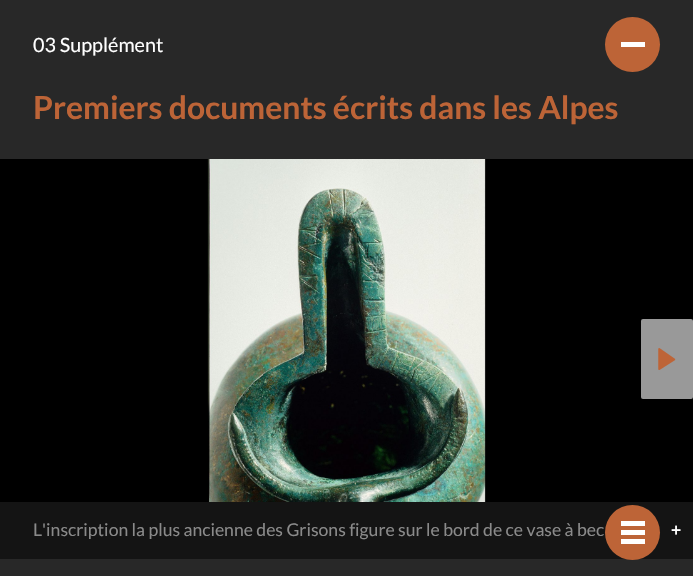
void draw(SkCanvas* canvas) {
    SkPaint paint;
    paint.setAntiAlias(true);
    canvas->clear(0xFF282828);
    SkFont font1(fontMgr->matchFamilyStyle("Lato", SkFontStyle::Normal()), 19.75f);
    font1.setSubpixel(true);
    paint.setColor(0xFFFFFFFF);
    canvas->drawString("03 Supplément", 33, 52, font1, paint);
    paint.setColor(0xFFBD6437);
    canvas->drawCircle(632.5f, 44.5f, 27.5f, paint);
    paint.setColor(0xFFFFFFFF);
    canvas->drawRect(SkRect::MakeXYWH(621, 42, 24, 5), paint);
    SkFont font2(fontMgr->matchFamilyStyle("Lato", SkFontStyle::Bold()), 31.9f);
    font2.setSubpixel(true);
    paint.setColor(0xFFBD6437);
    canvas->drawString("Premiers documents écrits dans les Alpes", 33, 119, font2, paint);
    paint.setColor(0xFF000000);
    canvas->drawRect(SkRect::MakeXYWH(0, 159, 693, 343), paint);
    paint.setColor(0xFF999999);
    canvas->drawRoundRect(SkRect::MakeXYWH(641, 319, 52, 80), 2, 2, paint);
    canvas->drawImageRect(SkImages::DeferredFromEncodedData(SkData::MakeFromFileName("img1.png")), SkRect::MakeXYWH(658, 348, 18, 22), SkSamplingOptions());
    canvas->drawImageRect(SkImages::DeferredFromEncodedData(SkData::MakeFromFileName("img2.png")), SkRect::MakeXYWH(207, 159, 279, 343), SkSamplingOptions());
    paint.setColor(0xFF141414);
    canvas->drawRect(SkRect::MakeXYWH(0, 502, 693, 57), paint);
    SkFont font3(fontMgr->matchFamilyStyle("Lato", SkFontStyle::Normal()), 17.6f);
    font3.setSubpixel(true);
    paint.setColor(0xFF8A8A8A);
    canvas->drawString("L'inscription la plus ancienne des Grisons figure sur le bord de ce vase à bec", 33, 536, font3, paint);
    SkFont font4(fontMgr->matchFamilyStyle("Lato", SkFontStyle::Bold()), 17.6f);
    font4.setSubpixel(true);
    paint.setColor(0xFFFFFFFF);
    canvas->drawString("+", 671, 536, font4, paint);
    paint.setColor(0xFFBD6437);
    canvas->drawCircle(632.5f, 532.5f, 27.5f, paint);
    paint.setColor(0xFFFFFFFF);
    canvas->drawRect(SkRect::MakeXYWH(621, 530, 24, 5), paint);
    canvas->drawRect(SkRect::MakeXYWH(621, 521, 24, 5), paint);
    canvas->drawRect(SkRect::MakeXYWH(621, 539, 24, 5), paint);
}
